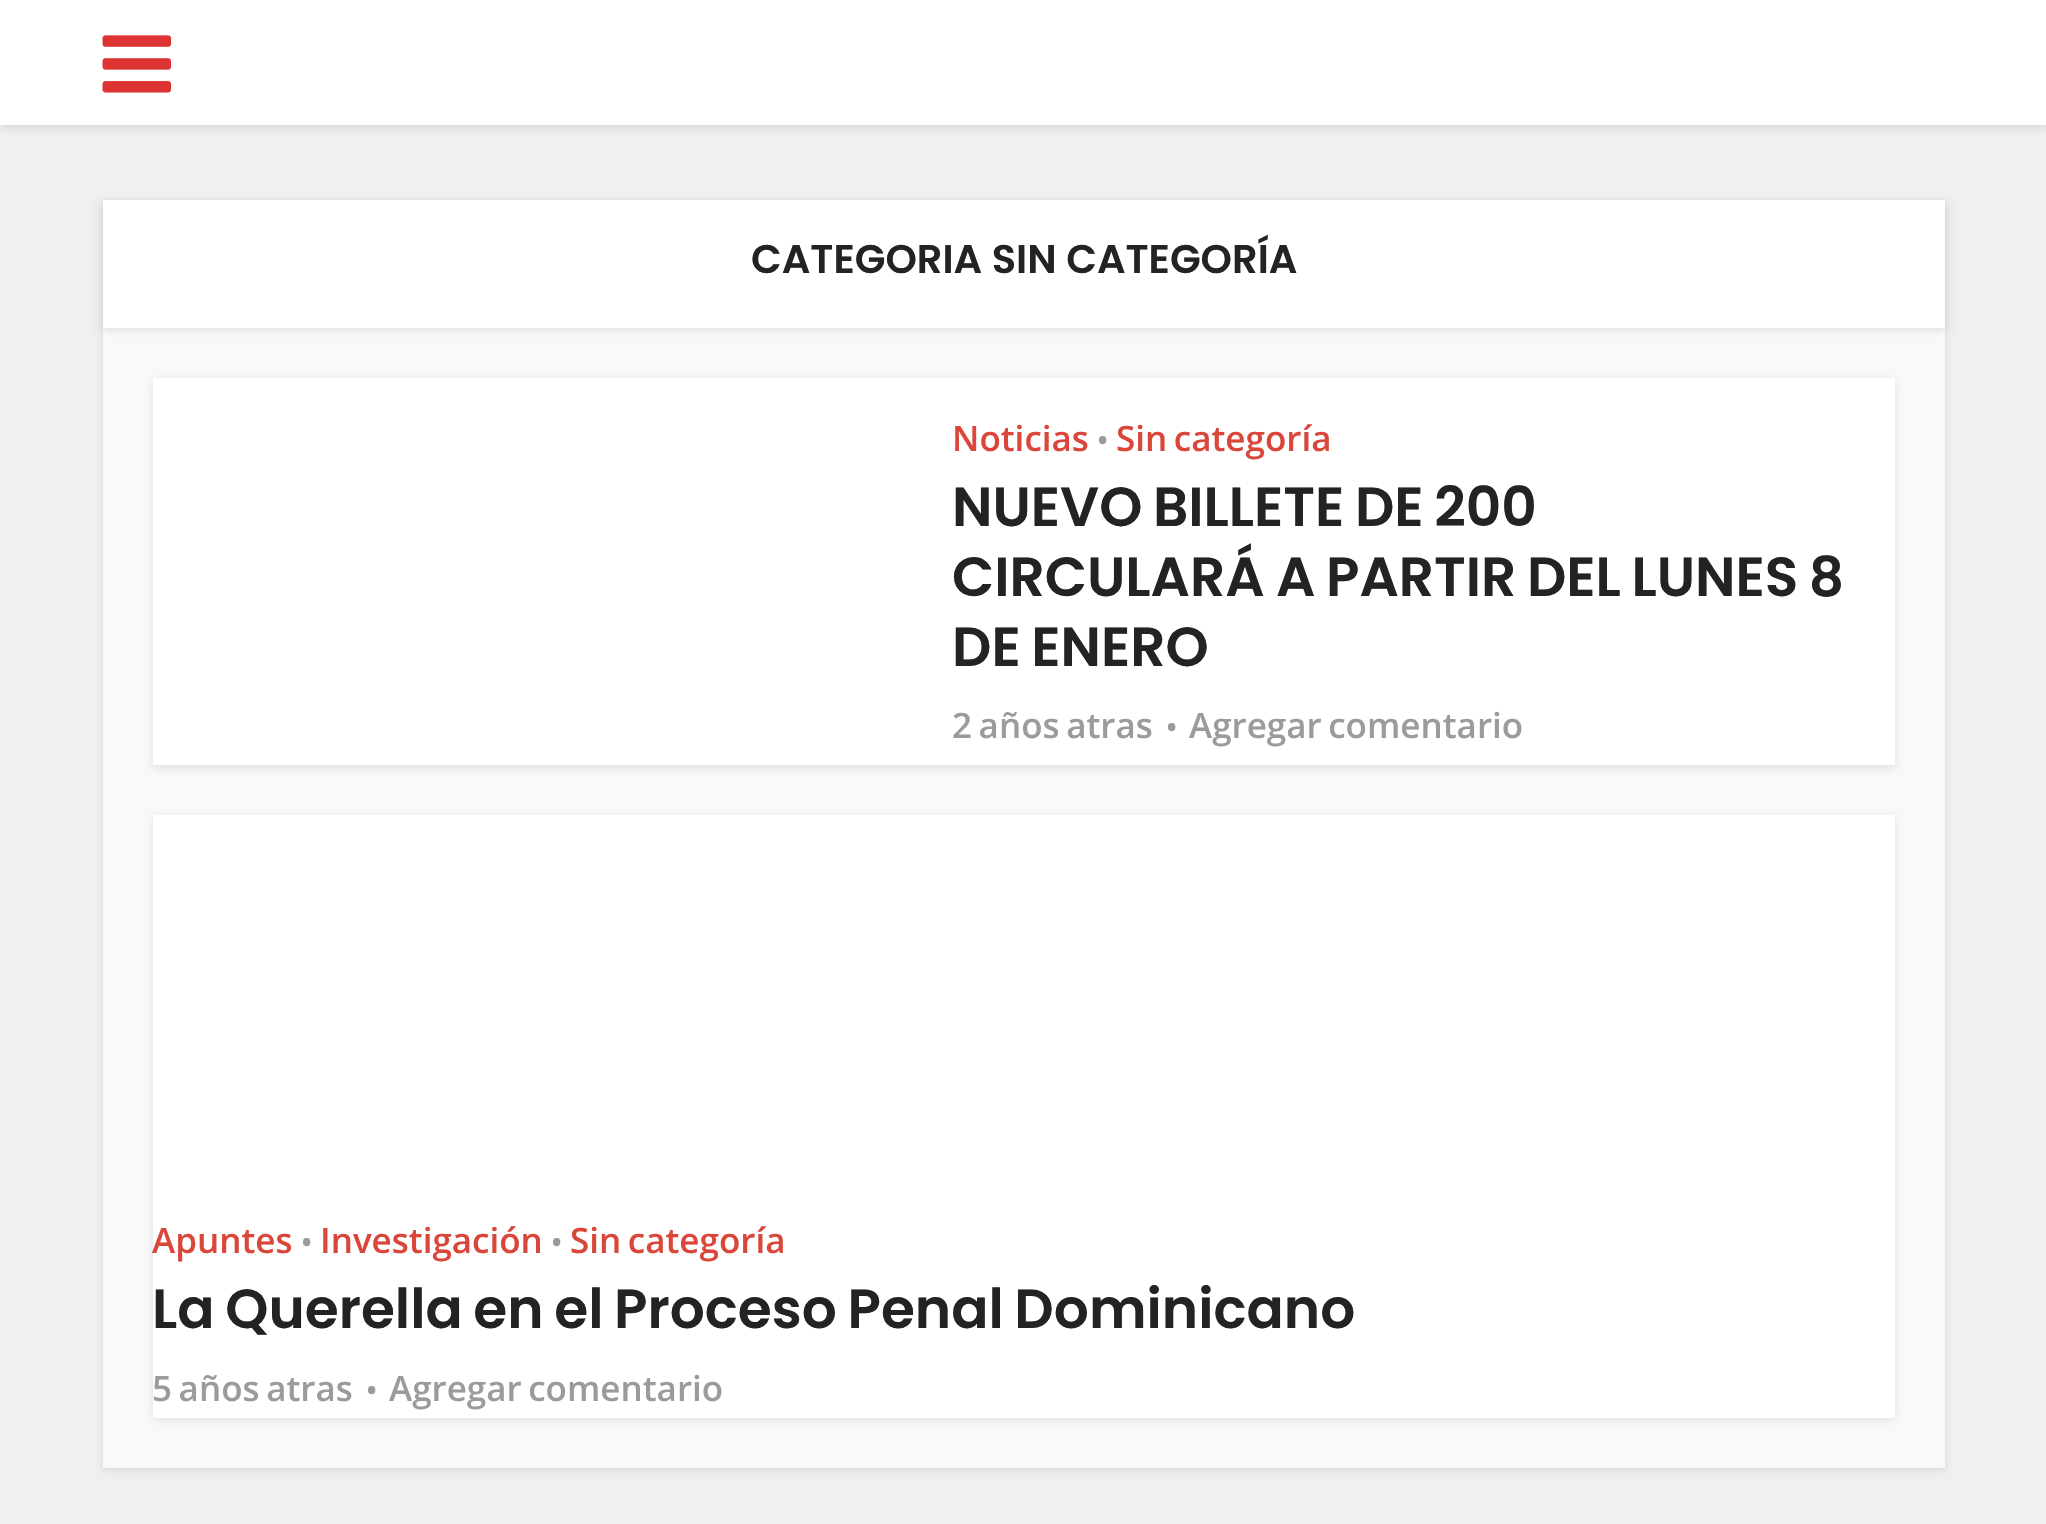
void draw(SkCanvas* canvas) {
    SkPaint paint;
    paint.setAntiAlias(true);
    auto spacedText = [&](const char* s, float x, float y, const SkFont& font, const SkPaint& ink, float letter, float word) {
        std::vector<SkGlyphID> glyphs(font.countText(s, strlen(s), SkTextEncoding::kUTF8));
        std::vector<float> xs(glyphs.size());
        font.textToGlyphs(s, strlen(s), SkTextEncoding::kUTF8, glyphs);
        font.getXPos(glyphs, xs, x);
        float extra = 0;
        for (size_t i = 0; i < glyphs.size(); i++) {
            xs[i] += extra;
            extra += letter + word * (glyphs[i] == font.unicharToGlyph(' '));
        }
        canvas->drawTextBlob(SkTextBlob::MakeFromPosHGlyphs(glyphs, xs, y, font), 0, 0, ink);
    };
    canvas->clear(0xFFF0F0F0);
    paint.setColor(0x1A000000);
    paint.setMaskFilter(SkMaskFilter::MakeBlur(kNormal_SkBlurStyle, 4));
    canvas->drawRect(SkRect::MakeXYWH(0, 3, 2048, 125), paint);
    paint.setMaskFilter(nullptr);
    paint.setColor(0xFFFFFFFF);
    canvas->drawRect(SkRect::MakeXYWH(0, 0, 2046, 125), paint);
    canvas->drawImageRect(SkImages::DeferredFromEncodedData(SkData::MakeFromFileName("img1.png")), SkRect::MakeXYWH(102, 35, 70, 58), SkSamplingOptions());
    paint.setColor(0x1A000000);
    paint.setMaskFilter(SkMaskFilter::MakeBlur(kNormal_SkBlurStyle, 4));
    canvas->drawRect(SkRect::MakeXYWH(103, 203, 1842, 1267), paint);
    paint.setMaskFilter(nullptr);
    paint.setColor(0xFFF9F9F9);
    canvas->drawRect(SkRect::MakeXYWH(103, 328, 1842, 1140), paint);
    paint.setColor(0x1A000000);
    paint.setMaskFilter(SkMaskFilter::MakeBlur(kNormal_SkBlurStyle, 4));
    canvas->drawRect(SkRect::MakeXYWH(103, 203, 1842, 127), paint);
    paint.setMaskFilter(nullptr);
    paint.setColor(0xFFFFFFFF);
    canvas->drawRect(SkRect::MakeXYWH(103, 200, 1842, 128), paint);
    SkFont font1(fontMgr->matchFamilyStyle("Poppins", SkFontStyle(600, SkFontStyle::kNormal_Width, SkFontStyle::kUpright_Slant)), 40);
    font1.setSubpixel(true);
    paint.setColor(0xFF232323);
    canvas->drawString("CATEGORIA SIN CATEGORÍA", 751, 273, font1, paint);
    paint.setColor(0x1A000000);
    paint.setMaskFilter(SkMaskFilter::MakeBlur(kNormal_SkBlurStyle, 4));
    canvas->drawRect(SkRect::MakeXYWH(153, 380, 1742, 388), paint);
    paint.setMaskFilter(nullptr);
    paint.setColor(0xFFFFFFFF);
    canvas->drawRect(SkRect::MakeXYWH(153, 378, 1742, 387), paint);
    SkFont font2(fontMgr->matchFamilyStyle("Open Sans", SkFontStyle(600, SkFontStyle::kNormal_Width, SkFontStyle::kUpright_Slant)), 35);
    font2.setSubpixel(true);
    paint.setColor(0xFFDA463A);
    canvas->drawString("Noticias", 952, 451, font2, paint);
    SkFont font3(fontMgr->matchFamilyStyle("Open Sans", SkFontStyle(600, SkFontStyle::kNormal_Width, SkFontStyle::kUpright_Slant)), 30);
    font3.setSubpixel(true);
    paint.setColor(0xFF9B9B9B);
    canvas->drawString("•", 1097, 451, font3, paint);
    paint.setColor(0xFFDA463A);
    spacedText("Sin categoría", 1116, 451, font2, paint, 0, -2.5f);
    SkFont font4(fontMgr->matchFamilyStyle("Poppins", SkFontStyle(600, SkFontStyle::kNormal_Width, SkFontStyle::kUpright_Slant)), 55);
    font4.setSubpixel(true);
    paint.setColor(0xFF232323);
    spacedText("NUEVO BILLETE DE 200", 952, 526, font4, paint, 0, -2.5f);
    canvas->drawString("CIRCULARÁ", 952, 596, font4, paint);
    spacedText("A PARTIR DEL LUNES 8", 1276, 596, font4, paint, 0, -2.5f);
    spacedText("DE ENERO", 952, 666, font4, paint, 0, -2.5f);
    paint.setColor(0xFF9B9B9B);
    spacedText("2 años atras", 952, 738, font2, paint, 0, -2.5f);
    canvas->drawString("•", 1166, 738, font3, paint);
    spacedText("Agregar comentario", 1189, 738, font2, paint, 0, -2.5f);
    paint.setColor(0x1A000000);
    paint.setMaskFilter(SkMaskFilter::MakeBlur(kNormal_SkBlurStyle, 4));
    canvas->drawRect(SkRect::MakeXYWH(153, 818, 1742, 602), paint);
    paint.setMaskFilter(nullptr);
    paint.setColor(0xFFFFFFFF);
    canvas->drawRect(SkRect::MakeXYWH(153, 815, 1742, 603), paint);
    paint.setColor(0xFFDA463A);
    canvas->drawString("Apuntes", 152, 1253, font2, paint);
    paint.setColor(0xFF9B9B9B);
    canvas->drawString("•", 301, 1253, font3, paint);
    paint.setColor(0xFFDA463A);
    canvas->drawString("Investigación", 320, 1253, font2, paint);
    paint.setColor(0xFF9B9B9B);
    canvas->drawString("•", 551, 1253, font3, paint);
    paint.setColor(0xFFDA463A);
    spacedText("Sin categoría", 570, 1253, font2, paint, 0, -2.5f);
    paint.setColor(0xFF232323);
    spacedText("La Querella en el Proceso Penal Dominicano", 152, 1328, font4, paint, 0, -2.5f);
    paint.setColor(0xFF9B9B9B);
    spacedText("5 años atras", 152, 1401, font2, paint, 0, -2.5f);
    canvas->drawString("•", 366, 1401, font3, paint);
    spacedText("Agregar comentario", 389, 1401, font2, paint, 0, -2.5f);
}
